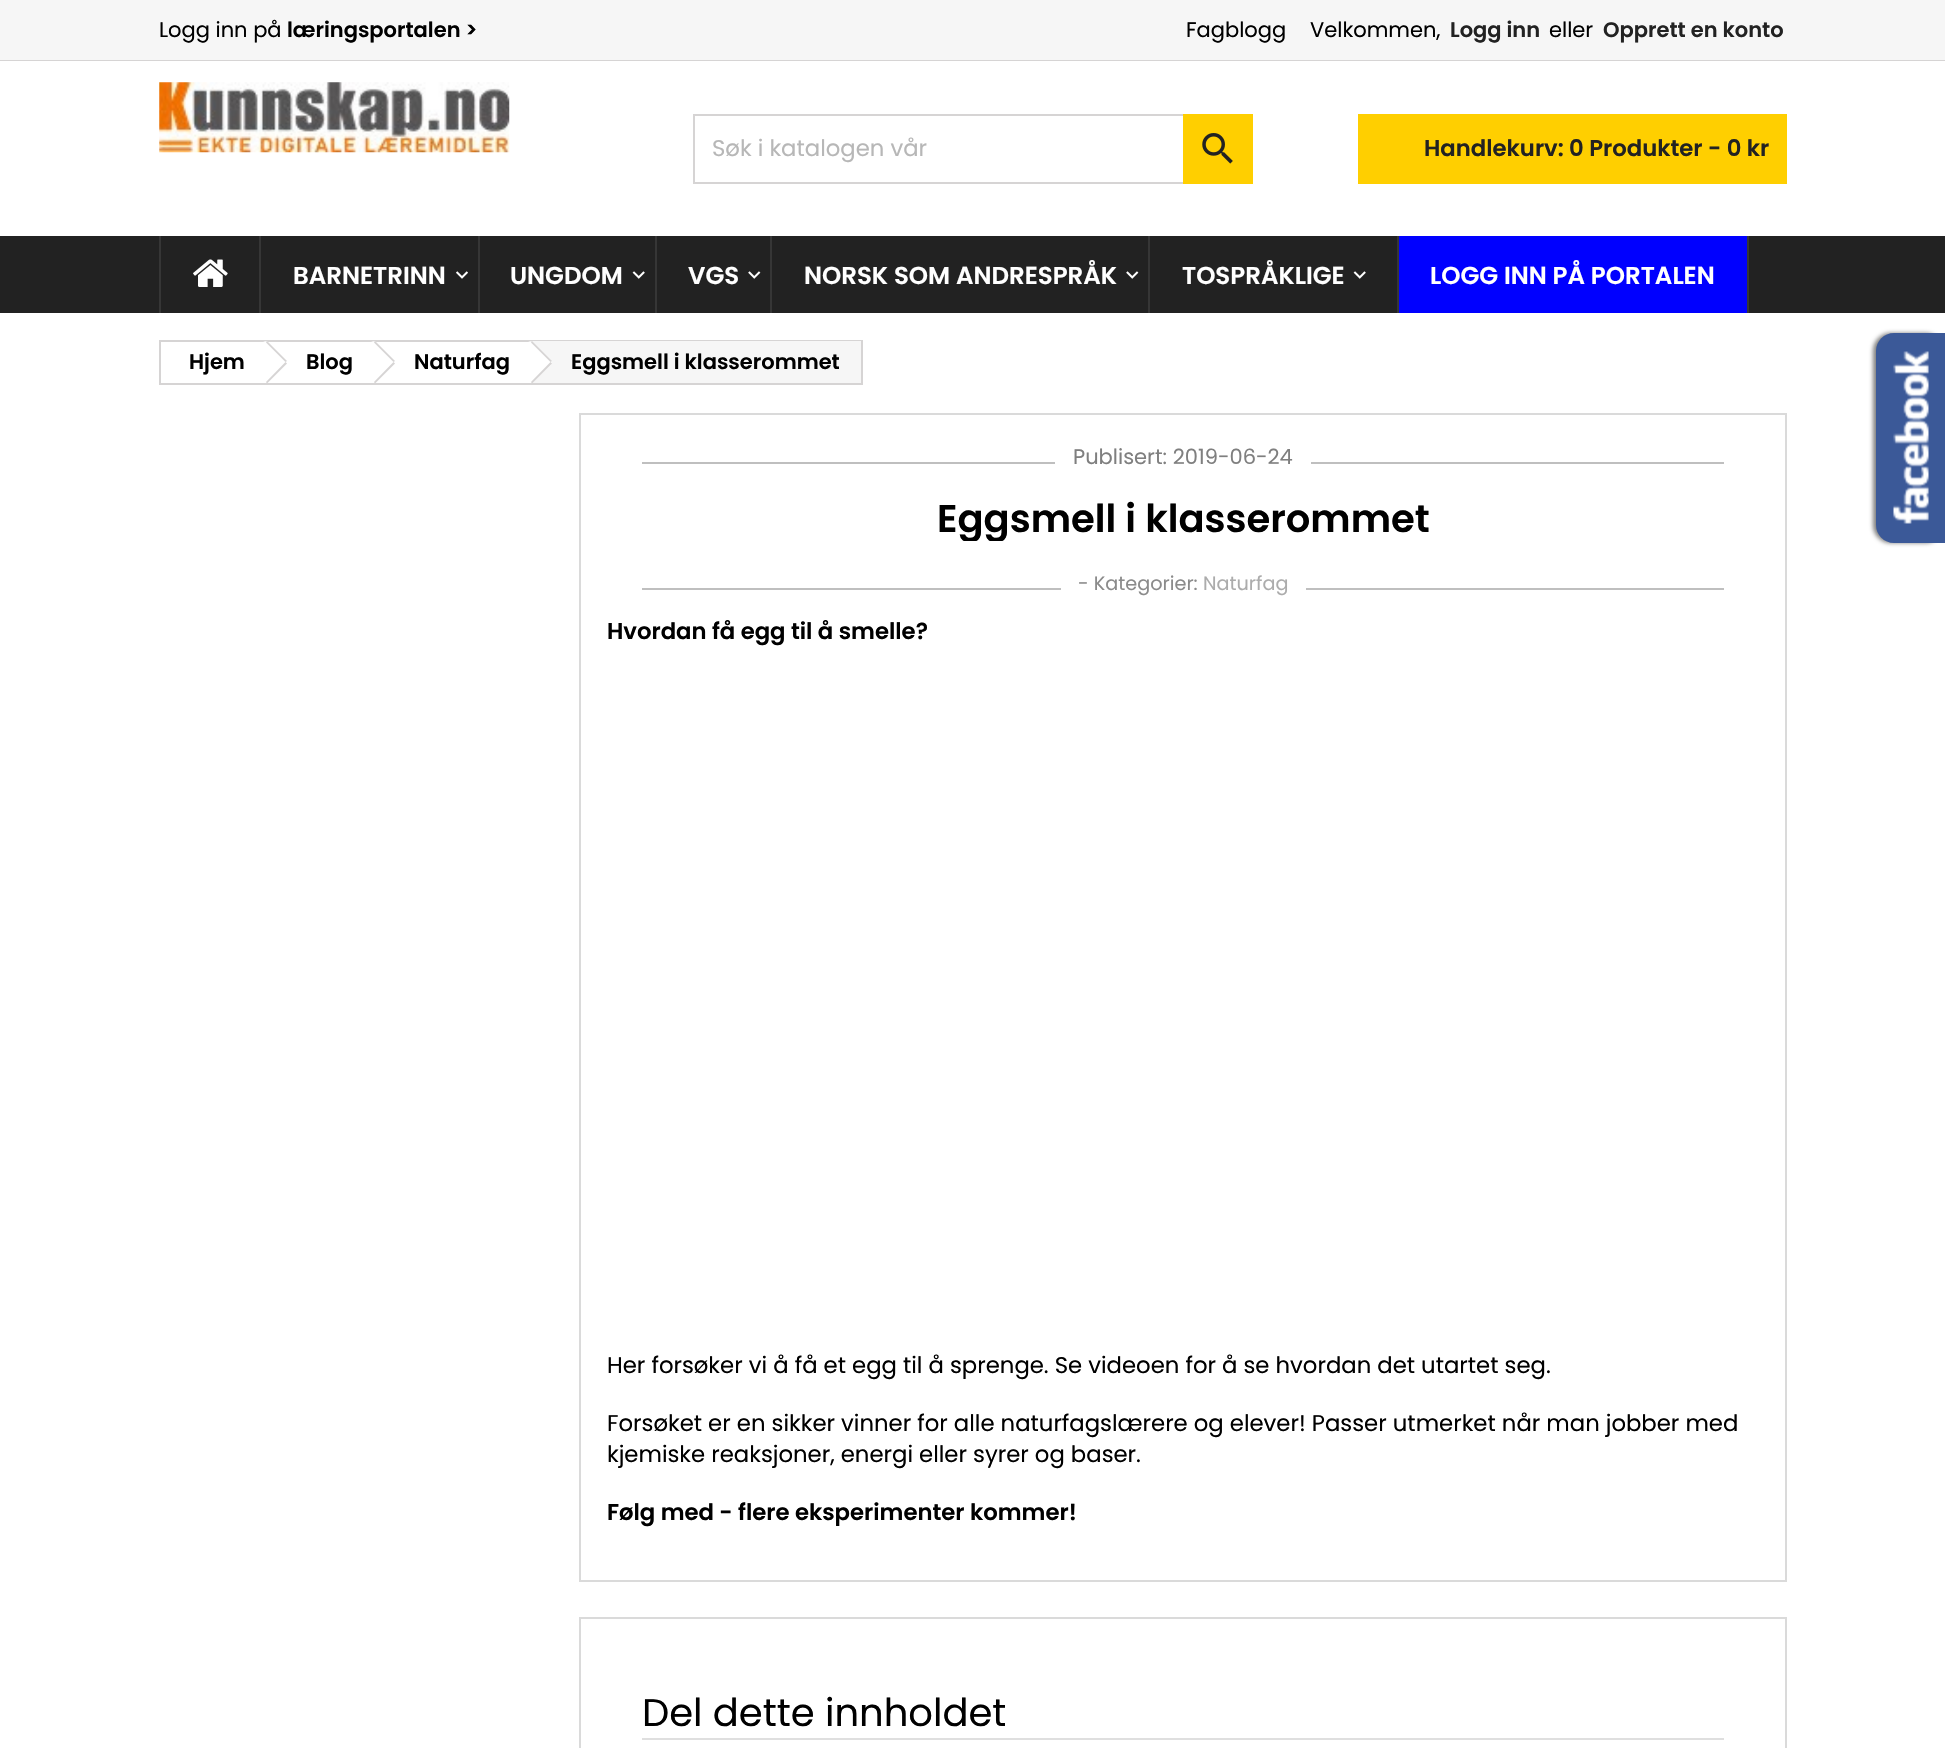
void draw(SkCanvas* canvas) {
    SkPaint paint;
    paint.setAntiAlias(true);
    canvas->clear(0xFFFFFFFF);
    paint.setColor(0xFFF6F6F6);
    canvas->drawRect(SkRect::MakeXYWH(0, 0, 1945, 60), paint);
    paint.setColor(0xFFD6D4D4);
    canvas->drawRect(SkRect::MakeXYWH(0, 60, 1945, 1), paint);
    SkFont font1(fontMgr->matchFamilyStyle("Poppins", SkFontStyle::Normal()), 21);
    font1.setSubpixel(true);
    paint.setColor(0xFF000000);
    canvas->drawString("Logg inn på", 159, 37, font1, paint);
    SkFont font2(fontMgr->matchFamilyStyle("Poppins", SkFontStyle(600, SkFontStyle::kNormal_Width, SkFontStyle::kUpright_Slant)), 21);
    font2.setSubpixel(true);
    canvas->drawString("læringsportalen >", 287, 37, font2, paint);
    canvas->drawString("Fagblogg", 1186, 37, font1, paint);
    canvas->drawString("Velkommen,", 1310, 37, font1, paint);
    paint.setColor(0xFF222222);
    canvas->drawString("Logg inn", 1450, 37, font2, paint);
    paint.setColor(0xFF000000);
    canvas->drawString("eller", 1549, 37, font1, paint);
    paint.setColor(0xFF222222);
    canvas->drawString("Opprett en konto", 1603, 37, font2, paint);
    canvas->drawImageRect(SkImages::DeferredFromEncodedData(SkData::MakeFromFileName("img1.png")), SkRect::MakeXYWH(159, 82, 351, 71), SkSamplingOptions());
    paint.setStyle(SkPaint::kStroke_Style);
    paint.setStrokeWidth(2);
    paint.setColor(0xFFD6D4D4);
    canvas->drawRect(SkRect::MakeXYWH(694, 115, 558, 68), paint);
    SkFont font3(fontMgr->matchFamilyStyle("Poppins", SkFontStyle::Normal()), 22.75f);
    font3.setSubpixel(true);
    paint.setStyle(SkPaint::kFill_Style);
    paint.setColor(0xFFB7B7B7);
    canvas->drawString("Søk i katalogen vår", 712, 156, font3, paint);
    paint.setColor(0xFFFFCF00);
    canvas->drawRect(SkRect::MakeXYWH(1183, 114, 70, 70), paint);
    canvas->drawImageRect(SkImages::DeferredFromEncodedData(SkData::MakeFromFileName("img2.png")), SkRect::MakeXYWH(1202, 133, 31, 31), SkSamplingOptions());
    canvas->drawRect(SkRect::MakeXYWH(1358, 114, 429, 70), paint);
    SkFont font4(fontMgr->matchFamilyStyle("Poppins", SkFontStyle(600, SkFontStyle::kNormal_Width, SkFontStyle::kUpright_Slant)), 22.75f);
    font4.setSubpixel(true);
    paint.setColor(0xFF222222);
    canvas->drawString("Handlekurv: 0 Produkter - 0 kr", 1424, 156, font4, paint);
    canvas->drawRect(SkRect::MakeXYWH(0, 236, 1945, 77), paint);
    paint.setColor(0xFF363636);
    canvas->drawRect(SkRect::MakeXYWH(159, 236, 2, 77), paint);
    canvas->drawImageRect(SkImages::DeferredFromEncodedData(SkData::MakeFromFileName("img3.png")), SkRect::MakeXYWH(193, 259, 35, 28), SkSamplingOptions());
    canvas->drawRect(SkRect::MakeXYWH(259, 236, 2, 77), paint);
    SkFont font5(fontMgr->matchFamilyStyle("Poppins", SkFontStyle(600, SkFontStyle::kNormal_Width, SkFontStyle::kUpright_Slant)), 24.5f);
    font5.setSubpixel(true);
    paint.setColor(0xFFFFFFFF);
    canvas->drawString("BARNETRINN", 293, 284, font5, paint);
    canvas->drawImageRect(SkImages::DeferredFromEncodedData(SkData::MakeFromFileName("img4.png")), SkRect::MakeXYWH(456, 271, 12, 8), SkSamplingOptions());
    paint.setColor(0xFF363636);
    canvas->drawRect(SkRect::MakeXYWH(478, 236, 2, 77), paint);
    paint.setColor(0xFFFFFFFF);
    canvas->drawString("UNGDOM", 510, 284, font5, paint);
    canvas->drawImageRect(SkImages::DeferredFromEncodedData(SkData::MakeFromFileName("img5.png")), SkRect::MakeXYWH(632, 271, 13, 8), SkSamplingOptions());
    paint.setColor(0xFF363636);
    canvas->drawRect(SkRect::MakeXYWH(655, 236, 2, 77), paint);
    paint.setColor(0xFFFFFFFF);
    canvas->drawString("VGS", 688, 284, font5, paint);
    canvas->drawImageRect(SkImages::DeferredFromEncodedData(SkData::MakeFromFileName("img6.png")), SkRect::MakeXYWH(748, 271, 13, 8), SkSamplingOptions());
    paint.setColor(0xFF363636);
    canvas->drawRect(SkRect::MakeXYWH(770, 236, 2, 77), paint);
    paint.setColor(0xFFFFFFFF);
    canvas->drawString("NORSK SOM ANDRESPRÅK", 804, 284, font5, paint);
    canvas->drawImageRect(SkImages::DeferredFromEncodedData(SkData::MakeFromFileName("img6.png")), SkRect::MakeXYWH(1126, 271, 13, 8), SkSamplingOptions());
    paint.setColor(0xFF363636);
    canvas->drawRect(SkRect::MakeXYWH(1148, 236, 2, 77), paint);
    paint.setColor(0xFFFFFFFF);
    canvas->drawString("TOSPRÅKLIGE", 1182, 284, font5, paint);
    canvas->drawImageRect(SkImages::DeferredFromEncodedData(SkData::MakeFromFileName("img5.png")), SkRect::MakeXYWH(1353, 271, 13, 8), SkSamplingOptions());
    paint.setColor(0xFF0000FF);
    canvas->drawRect(SkRect::MakeXYWH(1399, 236, 348, 77), paint);
    paint.setColor(0xFF363636);
    canvas->drawRect(SkRect::MakeXYWH(1747, 236, 2, 77), paint);
    canvas->drawRect(SkRect::MakeXYWH(1397, 236, 2, 77), paint);
    paint.setColor(0xFFFFFFFF);
    canvas->drawString("LOGG INN PÅ PORTALEN", 1430, 284, font5, paint);
    paint.setStyle(SkPaint::kStroke_Style);
    paint.setColor(0xFFD6D4D4);
    canvas->drawRect(SkRect::MakeXYWH(160, 341, 702, 43), paint);
    paint.setStyle(SkPaint::kFill_Style);
    paint.setColor(0xFF000000);
    canvas->drawString("Hjem", 189, 369, font2, paint);
    paint.setColor(0xFFFFFFFF);
    canvas->drawPath(SkPathBuilder().moveTo(268, 342).lineTo(286, 360).cubicTo(287, 361, 287, 363, 286, 365).lineTo(268, 382).cubicTo(267, 383, 265, 383, 263, 382).lineTo(246, 365).cubicTo(245, 363, 245, 361, 246, 360).lineTo(263, 342).cubicTo(265, 341, 267, 341, 268, 342).close().detach(), paint);
    paint.setColor(0xFFD6D4D4);
    canvas->drawPath(SkPathBuilder().moveTo(267, 341).lineTo(287, 361).lineTo(285.5f, 362).lineTo(266, 342.5f).close().moveTo(285.5f, 362).lineTo(287, 363.5f).lineTo(267, 383.5f).lineTo(266, 382).close().detach(), paint);
    paint.setColor(0xFF000000);
    canvas->drawString("Blog", 306, 369, font2, paint);
    paint.setColor(0xFFFFFFFF);
    canvas->drawPath(SkPathBuilder().moveTo(376, 342).lineTo(394, 360).cubicTo(395, 361, 395, 363, 394, 365).lineTo(376, 382).cubicTo(375, 383, 373, 383, 371, 382).lineTo(354, 365).cubicTo(353, 363, 353, 361, 354, 360).lineTo(371, 342).cubicTo(373, 341, 375, 341, 376, 342).close().detach(), paint);
    paint.setColor(0xFFD6D4D4);
    canvas->drawPath(SkPathBuilder().moveTo(375, 341).lineTo(395, 361).lineTo(393.5f, 362).lineTo(374, 342.5f).close().moveTo(393.5f, 362).lineTo(395, 363.5f).lineTo(375, 383.5f).lineTo(374, 382).close().detach(), paint);
    paint.setColor(0xFF000000);
    canvas->drawString("Naturfag", 414, 369, font2, paint);
    paint.setColor(0xFFF6F6F6);
    canvas->drawRect(SkRect::MakeXYWH(532, 341, 329, 42), paint);
    paint.setColor(0xFFFFFFFF);
    canvas->drawPath(SkPathBuilder().moveTo(533, 342).lineTo(551, 360).cubicTo(552, 361, 552, 363, 551, 365).lineTo(533, 382).cubicTo(532, 383, 530, 383, 528, 382).lineTo(511, 365).cubicTo(510, 363, 510, 361, 511, 360).lineTo(528, 342).cubicTo(530, 341, 532, 341, 533, 342).close().detach(), paint);
    paint.setColor(0xFFD6D4D4);
    canvas->drawPath(SkPathBuilder().moveTo(532, 341).lineTo(552, 361).lineTo(550.5f, 362).lineTo(531, 342.5f).close().moveTo(550.5f, 362).lineTo(552, 363.5f).lineTo(532, 383.5f).lineTo(531, 382).close().detach(), paint);
    paint.setColor(0xFF000000);
    canvas->drawString("Eggsmell i klasserommet", 571, 369, font2, paint);
    paint.setStyle(SkPaint::kStroke_Style);
    paint.setColor(0xFFDADADA);
    canvas->drawRect(SkRect::MakeXYWH(580, 414, 1206, 1167), paint);
    paint.setStyle(SkPaint::kFill_Style);
    paint.setColor(0xFFBFBFBF);
    canvas->drawRect(SkRect::MakeXYWH(642, 462, 1082, 2), paint);
    paint.setColor(0xFFFFFFFF);
    canvas->drawRect(SkRect::MakeXYWH(1055, 462, 256, 2), paint);
    paint.setColor(0xFF7F7F7F);
    canvas->drawString("Publisert: 2019-06-24", 1073, 464, font1, paint);
    canvas->save();
    canvas->clipRect(SkRect::MakeXYWH(642, 499, 1082, 42));
    SkFont font6(fontMgr->matchFamilyStyle("Poppins", SkFontStyle(600, SkFontStyle::kNormal_Width, SkFontStyle::kUpright_Slant)), 38.5f);
    font6.setSubpixel(true);
    paint.setColor(0xFF000000);
    canvas->drawString("Eggsmell i klasserommet", 937, 532, font6, paint);
    canvas->restore();
    paint.setColor(0xFFBFBFBF);
    canvas->drawRect(SkRect::MakeXYWH(642, 588, 1082, 2), paint);
    paint.setColor(0xFFFFFFFF);
    canvas->drawRect(SkRect::MakeXYWH(1061, 588, 245, 2), paint);
    SkFont font7(fontMgr->matchFamilyStyle("Poppins", SkFontStyle::Normal()), 19.25f);
    font7.setSubpixel(true);
    paint.setColor(0xFF8B8B8B);
    canvas->drawString("- Kategorier:", 1078, 590, font7, paint);
    paint.setColor(0xFFACACAC);
    canvas->drawString("Naturfag", 1203, 590, font7, paint);
    paint.setColor(0xFF000000);
    canvas->drawString("Hvordan få egg til å smelle?", 607, 639, font4, paint);
    canvas->drawString("Her forsøker vi å få et egg til å sprenge. Se videoen for å se hvordan det utartet seg.", 607, 1373, font3, paint);
    canvas->drawString("Forsøket er en sikker vinner for alle naturfagslærere og elever! Passer utmerket når man jobber med", 607, 1431, font3, paint);
    canvas->drawString("kjemiske reaksjoner, energi eller syrer og baser.", 607, 1462, font3, paint);
    canvas->drawString("Følg med - flere eksperimenter kommer!", 607, 1520, font4, paint);
    paint.setStyle(SkPaint::kStroke_Style);
    paint.setColor(0xFFDADADA);
    canvas->drawRect(SkRect::MakeXYWH(580, 1618, 1206, 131), paint);
    paint.setStyle(SkPaint::kFill_Style);
    paint.setColor(0xFFDFDFDF);
    canvas->drawRect(SkRect::MakeXYWH(642, 1738, 1082, 2), paint);
    SkFont font8(fontMgr->matchFamilyStyle("Poppins", SkFontStyle::Normal()), 38.5f);
    font8.setSubpixel(true);
    paint.setColor(0xFF000000);
    canvas->drawString("Del dette innholdet", 642, 1726, font8, paint);
    paint.setColor(0x80000000);
    paint.setMaskFilter(SkMaskFilter::MakeBlur(kNormal_SkBlurStyle, 2));
    canvas->drawRoundRect(SkRect::MakeXYWH(1873, 333, 70, 210), 18, 18, paint);
    paint.setMaskFilter(nullptr);
    paint.setColor(0xFF3B5998);
    canvas->drawPath(SkPathBuilder().moveTo(1894, 333).lineTo(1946, 333).lineTo(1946, 543).lineTo(1894, 543).cubicTo(1884, 543, 1876, 535, 1876, 525).lineTo(1876, 351).cubicTo(1876, 341, 1884, 333, 1894, 333).close().detach(), paint);
    canvas->drawImageRect(SkImages::DeferredFromEncodedData(SkData::MakeFromFileName("img7.png")), SkRect::MakeXYWH(1893, 351, 36, 173), SkSamplingOptions());
}
